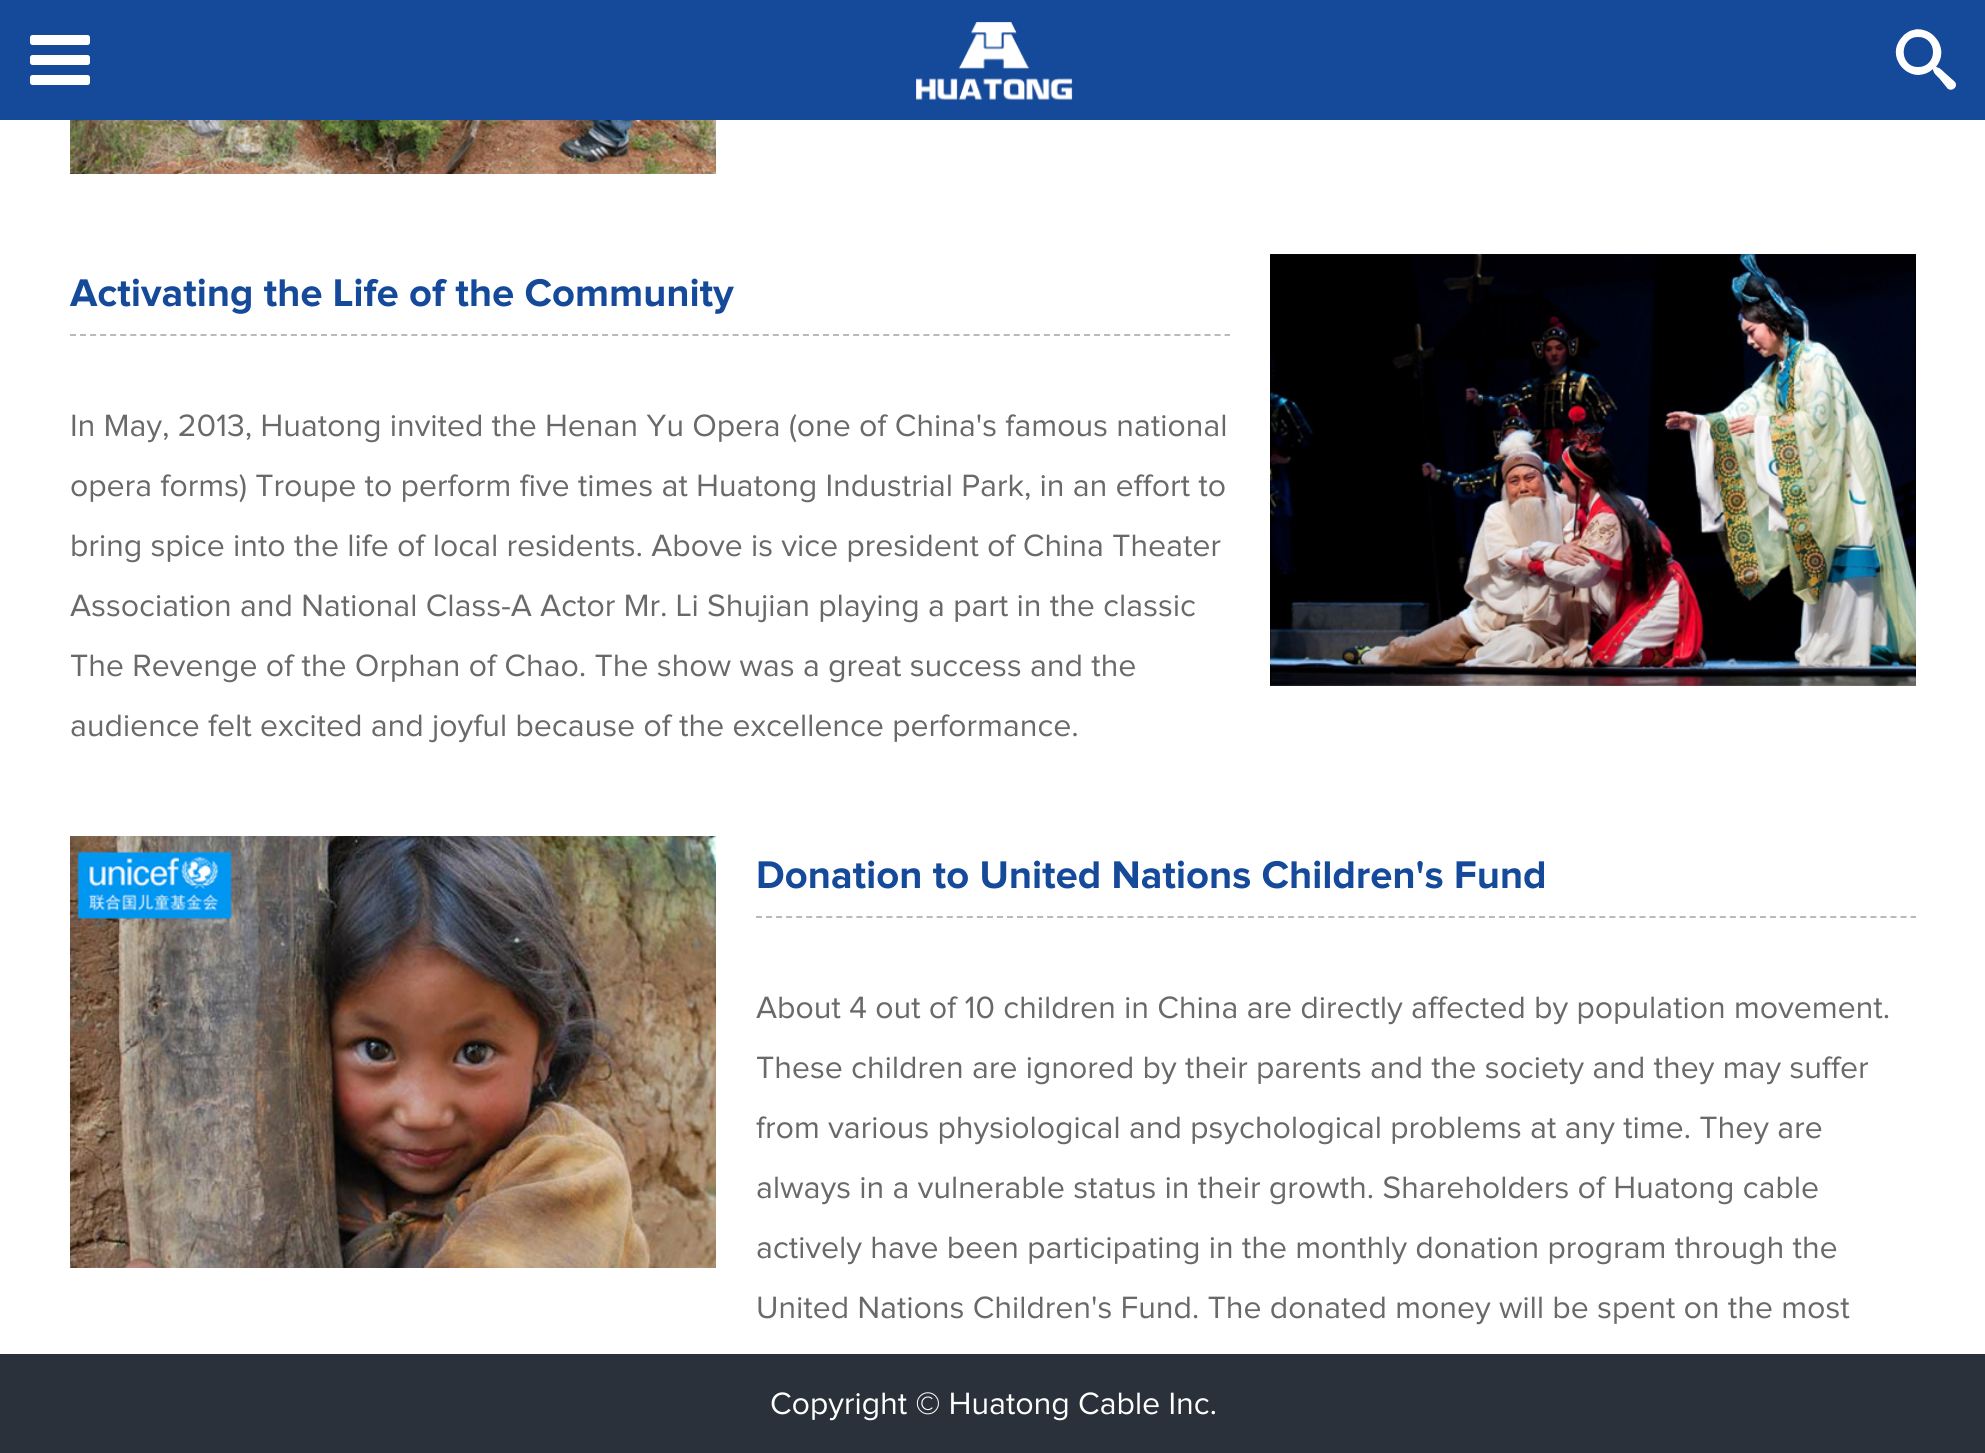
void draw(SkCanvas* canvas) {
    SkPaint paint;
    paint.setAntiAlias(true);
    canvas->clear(0xFFFFFFFF);
    paint.setColor(0xFF15499A);
    canvas->drawRect(SkRect::MakeXYWH(0, 0, 1985, 120), paint);
    canvas->drawImageRect(SkImages::DeferredFromEncodedData(SkData::MakeFromFileName("img1.png")), SkRect::MakeXYWH(30, 35, 60, 50), SkSamplingOptions());
    canvas->drawImageRect(SkImages::DeferredFromEncodedData(SkData::MakeFromFileName("img2.png")), SkRect::MakeXYWH(916, 22, 157, 78), SkSamplingOptions());
    paint.setColor(0xFFFFFFFF);
    canvas->drawPath(SkPathBuilder().moveTo(1954, 81).lineTo(1945, 73).cubicTo(1943, 71, 1939, 67, 1936, 67).cubicTo(1954, 45, 1923, 16, 1903, 36).cubicTo(1882, 57, 1912, 88, 1933, 69).cubicTo(1933, 73, 1937, 76, 1939, 78).lineTo(1948, 89).cubicTo(1954, 92, 1959, 85, 1954, 81).close().moveTo(1918, 67).cubicTo(1899, 67, 1899, 37, 1918, 37).cubicTo(1938, 37, 1938, 67, 1918, 67).close().detach(), paint);
    canvas->drawImageRect(SkImages::DeferredFromEncodedData(SkData::MakeFromFileName("img3.png")), SkRect::MakeXYWH(70, 120, 646, 54), SkSamplingOptions());
    paint.setStyle(SkPaint::kStroke_Style);
    paint.setStrokeWidth(2);
    paint.setColor(0xFFBABABA);
    paint.setPathEffect(SkDashPathEffect::Make({{6, 4.04f}}, 0));
    canvas->drawPath(SkPathBuilder().moveTo(70, 335).lineTo(1230, 335).detach(), paint);
    paint.setPathEffect(nullptr);
    canvas->drawImageRect(SkImages::DeferredFromEncodedData(SkData::MakeFromFileName("img4.png")), SkRect::MakeXYWH(70, 278, 664, 36), SkSamplingOptions());
    canvas->drawImageRect(SkImages::DeferredFromEncodedData(SkData::MakeFromFileName("img5.png")), SkRect::MakeXYWH(72, 414, 1154, 29), SkSamplingOptions());
    canvas->drawImageRect(SkImages::DeferredFromEncodedData(SkData::MakeFromFileName("img6.png")), SkRect::MakeXYWH(71, 474, 1154, 29), SkSamplingOptions());
    canvas->drawImageRect(SkImages::DeferredFromEncodedData(SkData::MakeFromFileName("img7.png")), SkRect::MakeXYWH(72, 534, 1149, 29), SkSamplingOptions());
    canvas->drawImageRect(SkImages::DeferredFromEncodedData(SkData::MakeFromFileName("img8.png")), SkRect::MakeXYWH(70, 594, 1125, 29), SkSamplingOptions());
    canvas->drawImageRect(SkImages::DeferredFromEncodedData(SkData::MakeFromFileName("img9.png")), SkRect::MakeXYWH(71, 654, 1064, 29), SkSamplingOptions());
    canvas->drawImageRect(SkImages::DeferredFromEncodedData(SkData::MakeFromFileName("img10.png")), SkRect::MakeXYWH(71, 714, 1006, 29), SkSamplingOptions());
    canvas->drawImageRect(SkImages::DeferredFromEncodedData(SkData::MakeFromFileName("img11.png")), SkRect::MakeXYWH(1270, 254, 646, 432), SkSamplingOptions());
    canvas->drawImageRect(SkImages::DeferredFromEncodedData(SkData::MakeFromFileName("img12.png")), SkRect::MakeXYWH(70, 836, 646, 432), SkSamplingOptions());
    paint.setPathEffect(SkDashPathEffect::Make({{6, 4.04f}}, 0));
    canvas->drawPath(SkPathBuilder().moveTo(756, 917).lineTo(1916, 917).detach(), paint);
    paint.setPathEffect(nullptr);
    canvas->drawImageRect(SkImages::DeferredFromEncodedData(SkData::MakeFromFileName("img13.png")), SkRect::MakeXYWH(758, 860, 786, 29), SkSamplingOptions());
    canvas->drawImageRect(SkImages::DeferredFromEncodedData(SkData::MakeFromFileName("img14.png")), SkRect::MakeXYWH(756, 996, 1133, 29), SkSamplingOptions());
    canvas->drawImageRect(SkImages::DeferredFromEncodedData(SkData::MakeFromFileName("img15.png")), SkRect::MakeXYWH(757, 1056, 1112, 29), SkSamplingOptions());
    canvas->drawImageRect(SkImages::DeferredFromEncodedData(SkData::MakeFromFileName("img16.png")), SkRect::MakeXYWH(756, 1116, 1066, 29), SkSamplingOptions());
    canvas->drawImageRect(SkImages::DeferredFromEncodedData(SkData::MakeFromFileName("img17.png")), SkRect::MakeXYWH(757, 1176, 1061, 29), SkSamplingOptions());
    canvas->drawImageRect(SkImages::DeferredFromEncodedData(SkData::MakeFromFileName("img18.png")), SkRect::MakeXYWH(757, 1236, 1080, 29), SkSamplingOptions());
    canvas->drawImageRect(SkImages::DeferredFromEncodedData(SkData::MakeFromFileName("img19.png")), SkRect::MakeXYWH(758, 1296, 1092, 29), SkSamplingOptions());
    paint.setStyle(SkPaint::kFill_Style);
    paint.setColor(0xFF2B313A);
    canvas->drawRect(SkRect::MakeXYWH(0, 1354, 1985, 99), paint);
    canvas->drawImageRect(SkImages::DeferredFromEncodedData(SkData::MakeFromFileName("img20.png")), SkRect::MakeXYWH(771, 1392, 444, 29), SkSamplingOptions());
}
